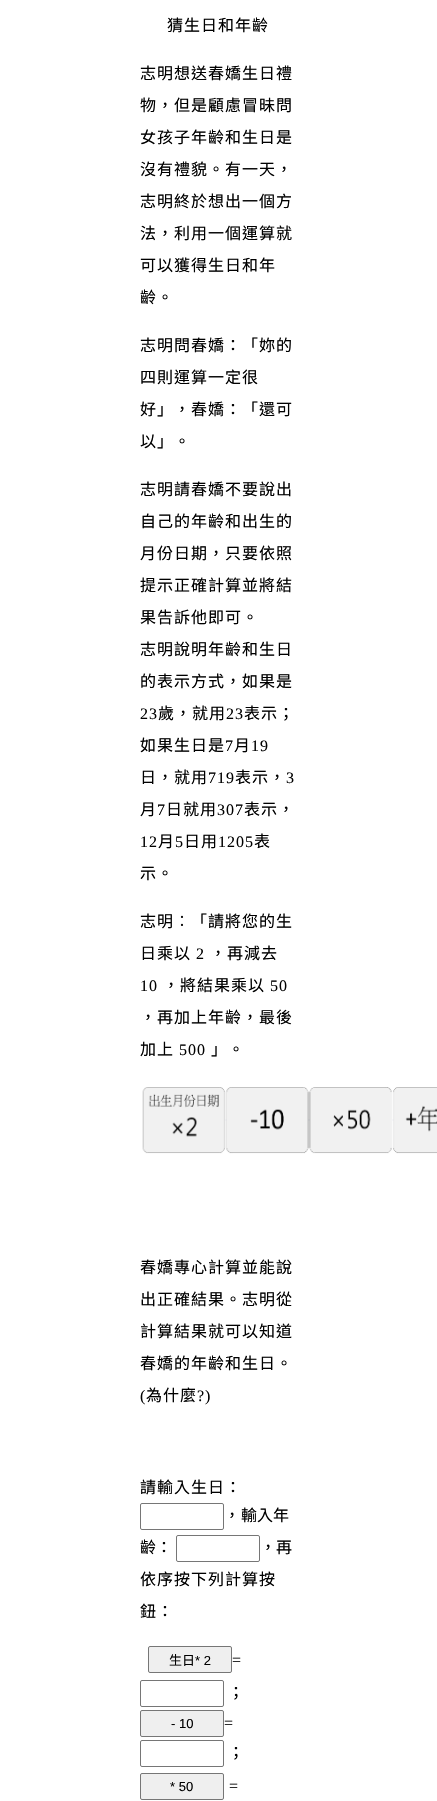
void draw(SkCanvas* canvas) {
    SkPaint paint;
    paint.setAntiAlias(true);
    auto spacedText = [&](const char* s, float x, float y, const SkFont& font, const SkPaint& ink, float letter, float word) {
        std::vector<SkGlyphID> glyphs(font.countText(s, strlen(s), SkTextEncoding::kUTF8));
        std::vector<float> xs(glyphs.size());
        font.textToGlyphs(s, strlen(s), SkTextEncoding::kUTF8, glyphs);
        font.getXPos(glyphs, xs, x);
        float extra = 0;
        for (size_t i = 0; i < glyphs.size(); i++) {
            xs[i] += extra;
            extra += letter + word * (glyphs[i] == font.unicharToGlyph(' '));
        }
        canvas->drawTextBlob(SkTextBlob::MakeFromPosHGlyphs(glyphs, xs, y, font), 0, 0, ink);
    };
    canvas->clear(0xFFFFFFFF);
    SkFont font1(fontMgr->matchFamilyStyle("Noto Sans CJK TC", SkFontStyle::Normal()), 16);
    font1.setSubpixel(true);
    paint.setColor(0xFF000000);
    spacedText("猜生日和年齡", 167, 31, font1, paint, 1, 0);
    spacedText("志明想送春嬌生日禮", 140, 79, font1, paint, 1, 0);
    spacedText("物，但是顧慮冒昧問", 140, 111, font1, paint, 1, 0);
    spacedText("女孩子年齡和生日是", 140, 143, font1, paint, 1, 0);
    spacedText("沒有禮貌。有一天，", 140, 175, font1, paint, 1, 0);
    spacedText("志明終於想出一個方", 140, 207, font1, paint, 1, 0);
    spacedText("法，利用一個運算就", 140, 239, font1, paint, 1, 0);
    spacedText("可以獲得生日和年", 140, 271, font1, paint, 1, 0);
    spacedText("齡。", 140, 303, font1, paint, 1, 0);
    spacedText("志明問春嬌：「妳的", 140, 351, font1, paint, 1, 0);
    spacedText("四則運算一定很", 140, 383, font1, paint, 1, 0);
    spacedText("好」，春嬌：「還可", 140, 415, font1, paint, 1, 0);
    spacedText("以」。", 140, 447, font1, paint, 1, 0);
    spacedText("志明請春嬌不要說出", 140, 495, font1, paint, 1, 0);
    spacedText("自己的年齡和出生的", 140, 527, font1, paint, 1, 0);
    spacedText("月份日期，只要依照", 140, 559, font1, paint, 1, 0);
    spacedText("提示正確計算並將結", 140, 591, font1, paint, 1, 0);
    spacedText("果告訴他即可。", 140, 623, font1, paint, 1, 0);
    spacedText("志明說明年齡和生日", 140, 655, font1, paint, 1, 0);
    spacedText("的表示方式，如果是", 140, 687, font1, paint, 1, 0);
    SkFont font2(fontMgr->matchFamilyStyle("Liberation Serif", SkFontStyle::Normal()), 16);
    font2.setSubpixel(true);
    spacedText("23", 140, 719, font2, paint, 1, 0);
    spacedText("歲，就用", 158, 719, font1, paint, 1, 0);
    spacedText("23", 226, 719, font2, paint, 1, 0);
    spacedText("表示；", 244, 719, font1, paint, 1, 0);
    spacedText("如果生日是", 140, 751, font1, paint, 1, 0);
    spacedText("7", 225, 751, font2, paint, 1, 0);
    spacedText("月", 234, 751, font1, paint, 1, 0);
    spacedText("19", 251, 751, font2, paint, 1, 0);
    spacedText("日，就用", 140, 783, font1, paint, 1, 0);
    spacedText("719", 208, 783, font2, paint, 1, 0);
    spacedText("表示，", 235, 783, font1, paint, 1, 0);
    spacedText("3", 286, 783, font2, paint, 1, 0);
    spacedText("月", 140, 815, font1, paint, 1, 0);
    spacedText("7", 157, 815, font2, paint, 1, 0);
    spacedText("日就用", 166, 815, font1, paint, 1, 0);
    spacedText("307", 217, 815, font2, paint, 1, 0);
    spacedText("表示，", 244, 815, font1, paint, 1, 0);
    spacedText("12", 140, 847, font2, paint, 1, 0);
    spacedText("月", 158, 847, font1, paint, 1, 0);
    spacedText("5", 175, 847, font2, paint, 1, 0);
    spacedText("日用", 184, 847, font1, paint, 1, 0);
    spacedText("1205", 218, 847, font2, paint, 1, 0);
    spacedText("表", 254, 847, font1, paint, 1, 0);
    spacedText("示。", 140, 879, font1, paint, 1, 0);
    spacedText("志明︰「請將您的生", 140, 927, font1, paint, 1, 0);
    spacedText("日乘以", 140, 959, font1, paint, 1, 0);
    spacedText("2", 196, 959, font2, paint, 1, 0);
    spacedText("，再減去", 210, 959, font1, paint, 1, 0);
    spacedText("10", 140, 991, font2, paint, 1, 0);
    spacedText("，將結果乘以", 163, 991, font1, paint, 1, 0);
    spacedText("50", 270, 991, font2, paint, 1, 0);
    spacedText("，再加上年齡，最後", 140, 1023, font1, paint, 1, 0);
    spacedText("加上", 140, 1055, font1, paint, 1, 0);
    spacedText("500", 179, 1055, font2, paint, 1, 0);
    spacedText("」。", 211, 1055, font1, paint, 1, 0);
    canvas->drawImageRect(SkImages::DeferredFromEncodedData(SkData::MakeFromFileName("img1.png")), SkRect::MakeXYWH(142, 1087, 295, 67), SkSamplingOptions());
    spacedText("春嬌專心計算並能說", 140, 1273, font1, paint, 1, 0);
    spacedText("出正確結果。志明從", 140, 1305, font1, paint, 1, 0);
    spacedText("計算結果就可以知道", 140, 1337, font1, paint, 1, 0);
    spacedText("春嬌的年齡和生日。", 140, 1369, font1, paint, 1, 0);
    spacedText("(", 140, 1401, font2, paint, 1, 0);
    spacedText("為什麼", 146, 1401, font1, paint, 1, 0);
    spacedText("?)", 197, 1401, font2, paint, 1, 0);
    spacedText("請輸入生日：", 140, 1493, font1, paint, 1, 0);
    paint.setStyle(SkPaint::kStroke_Style);
    paint.setStrokeWidth(1);
    paint.setColor(0xFF767676);
    canvas->drawRoundRect(SkRect::MakeXYWH(140.5f, 1503.5f, 83, 26), 1.5f, 1.5f, paint);
    paint.setStyle(SkPaint::kFill_Style);
    paint.setColor(0xFF000000);
    spacedText("，", 224, 1521, font1, paint, 1, 0);
    canvas->drawString("輸入年", 241, 1521, font1, paint);
    canvas->drawString("齡：", 140, 1553, font1, paint);
    paint.setStyle(SkPaint::kStroke_Style);
    paint.setColor(0xFF767676);
    canvas->drawRoundRect(SkRect::MakeXYWH(176.5f, 1535.5f, 83, 26), 1.5f, 1.5f, paint);
    paint.setStyle(SkPaint::kFill_Style);
    paint.setColor(0xFF000000);
    canvas->drawString("，", 260, 1553, font1, paint);
    spacedText("再", 276, 1553, font1, paint, 1, 0);
    spacedText("依序按下列計算按", 140, 1585, font1, paint, 1, 0);
    spacedText("鈕：", 140, 1617, font1, paint, 1, 0);
    paint.setColor(0xFFEFEFEF);
    canvas->drawRoundRect(SkRect::MakeXYWH(148.5f, 1646.5f, 83, 26), 1.5f, 1.5f, paint);
    paint.setStyle(SkPaint::kStroke_Style);
    paint.setColor(0xFF767676);
    canvas->drawRoundRect(SkRect::MakeXYWH(148.5f, 1646.5f, 83, 26), 1.5f, 1.5f, paint);
    SkFont font3(fontMgr->matchFamilyStyle("Noto Sans CJK TC", SkFontStyle::Normal()), 13);
    font3.setSubpixel(true);
    paint.setStyle(SkPaint::kFill_Style);
    paint.setColor(0xFF000000);
    canvas->drawString("生日", 169, 1665, font3, paint);
    SkFont font4(fontMgr->matchFamilyStyle("Liberation Sans", SkFontStyle::Normal()), 13);
    font4.setSubpixel(true);
    canvas->drawString("* 2", 195, 1665, font4, paint);
    spacedText("=", 232, 1665, font2, paint, 1, 0);
    paint.setStyle(SkPaint::kStroke_Style);
    paint.setColor(0xFF767676);
    canvas->drawRoundRect(SkRect::MakeXYWH(140.5f, 1680.5f, 83, 26), 1.5f, 1.5f, paint);
    paint.setStyle(SkPaint::kFill_Style);
    paint.setColor(0xFF000000);
    spacedText("；", 228, 1698, font1, paint, 1, 0);
    paint.setColor(0xFFEFEFEF);
    canvas->drawRoundRect(SkRect::MakeXYWH(140.5f, 1710.5f, 83, 26), 1.5f, 1.5f, paint);
    paint.setStyle(SkPaint::kStroke_Style);
    paint.setColor(0xFF767676);
    canvas->drawRoundRect(SkRect::MakeXYWH(140.5f, 1710.5f, 83, 26), 1.5f, 1.5f, paint);
    paint.setStyle(SkPaint::kFill_Style);
    paint.setColor(0xFF000000);
    canvas->drawString("- 10", 171, 1728, font4, paint);
    spacedText("=", 224, 1728, font2, paint, 1, 0);
    paint.setStyle(SkPaint::kStroke_Style);
    paint.setColor(0xFF767676);
    canvas->drawRoundRect(SkRect::MakeXYWH(140.5f, 1740.5f, 83, 26), 1.5f, 1.5f, paint);
    paint.setStyle(SkPaint::kFill_Style);
    paint.setColor(0xFF000000);
    spacedText("；", 228, 1758, font1, paint, 1, 0);
    paint.setColor(0xFFEFEFEF);
    canvas->drawRoundRect(SkRect::MakeXYWH(140.5f, 1773.5f, 83, 26), 1.5f, 1.5f, paint);
    paint.setStyle(SkPaint::kStroke_Style);
    paint.setColor(0xFF767676);
    canvas->drawRoundRect(SkRect::MakeXYWH(140.5f, 1773.5f, 83, 26), 1.5f, 1.5f, paint);
    paint.setStyle(SkPaint::kFill_Style);
    paint.setColor(0xFF000000);
    canvas->drawString("* 50", 170, 1791, font4, paint);
    spacedText("=", 229, 1791, font2, paint, 1, 0);
}
